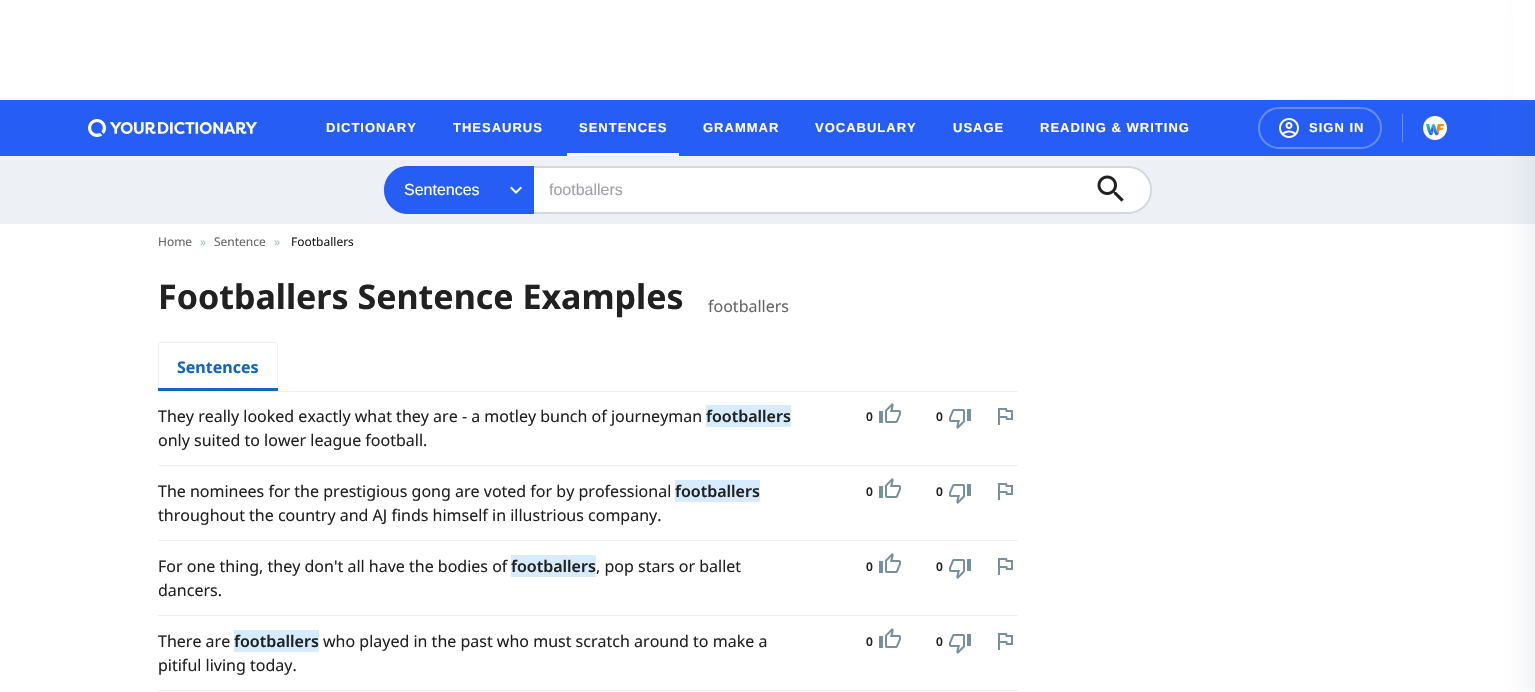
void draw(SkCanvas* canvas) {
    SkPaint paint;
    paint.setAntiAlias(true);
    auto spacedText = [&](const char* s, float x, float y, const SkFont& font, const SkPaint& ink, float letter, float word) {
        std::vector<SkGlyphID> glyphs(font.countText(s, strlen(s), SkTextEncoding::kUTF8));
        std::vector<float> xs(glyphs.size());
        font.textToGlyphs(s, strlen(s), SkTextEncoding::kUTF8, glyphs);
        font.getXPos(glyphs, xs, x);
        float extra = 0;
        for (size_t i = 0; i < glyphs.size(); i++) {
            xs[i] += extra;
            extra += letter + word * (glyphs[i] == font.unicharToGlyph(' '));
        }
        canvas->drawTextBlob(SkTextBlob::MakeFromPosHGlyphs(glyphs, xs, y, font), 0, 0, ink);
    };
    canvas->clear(0xFFFFFFFF);
    paint.setColor(0xFF265EF5);
    canvas->drawRect(SkRect::MakeXYWH(0, 100, 1535, 56), paint);
    paint.setColor(0xFFEDF1F6);
    canvas->drawRect(SkRect::MakeXYWH(0, 156, 1535, 68), paint);
    paint.setColor(0x1F546E7A);
    paint.setMaskFilter(SkMaskFilter::MakeBlur(kNormal_SkBlurStyle, 15));
    canvas->drawRect(SkRect::MakeXYWH(1530, 1, 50, 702), paint);
    paint.setMaskFilter(nullptr);
    paint.setColor(0xFFFFFFFF);
    canvas->drawRect(SkRect::MakeXYWH(1513, 0, 22, 100), paint);
    canvas->drawImageRect(SkImages::DeferredFromEncodedData(SkData::MakeFromFileName("img1.png")), SkRect::MakeXYWH(88, 119, 169, 18), SkSamplingOptions());
    SkFont font1(fontMgr->matchFamilyStyle("Liberation Sans", SkFontStyle::Bold()), 13);
    font1.setSubpixel(true);
    spacedText("DICTIONARY", 326, 132, font1, paint, 1, 0);
    spacedText("THESAURUS", 453, 132, font1, paint, 1, 0);
    spacedText("SENTENCES", 579, 132, font1, paint, 1, 0);
    canvas->drawRect(SkRect::MakeXYWH(567, 153, 112, 3), paint);
    spacedText("GRAMMAR", 703, 132, font1, paint, 1, 0);
    spacedText("VOCABULARY", 815, 132, font1, paint, 1, 0);
    spacedText("USAGE", 953, 132, font1, paint, 1, 0);
    spacedText("READING & WRITING", 1040, 132, font1, paint, 1, 0);
    paint.setStyle(SkPaint::kStroke_Style);
    paint.setStrokeWidth(2);
    paint.setColor(0xFF678EF8);
    canvas->drawRoundRect(SkRect::MakeXYWH(1259, 108, 122, 40), 20, 20, paint);
    canvas->drawImageRect(SkImages::DeferredFromEncodedData(SkData::MakeFromFileName("img2.png")), SkRect::MakeXYWH(1279, 118, 20, 20), SkSamplingOptions());
    paint.setStyle(SkPaint::kFill_Style);
    paint.setColor(0xFFFFFFFF);
    spacedText("SIGN IN", 1309, 132, font1, paint, 1, 0);
    paint.setColor(0xFF678EF8);
    canvas->drawRect(SkRect::MakeXYWH(1402, 114, 1, 28), paint);
    canvas->drawImageRect(SkImages::DeferredFromEncodedData(SkData::MakeFromFileName("img3.png")), SkRect::MakeXYWH(1423, 116, 24, 24), SkSamplingOptions());
    paint.setColor(0xFFFFFFFF);
    canvas->drawRoundRect(SkRect::MakeXYWH(385, 167, 766, 46), 23, 23, paint);
    paint.setStyle(SkPaint::kStroke_Style);
    paint.setColor(0xFFCFD8DC);
    canvas->drawRoundRect(SkRect::MakeXYWH(385, 167, 766, 46), 23, 23, paint);
    paint.setStyle(SkPaint::kFill_Style);
    paint.setColor(0xFF265EF5);
    canvas->drawPath(SkPathBuilder().moveTo(408, 166).lineTo(534, 166).lineTo(534, 214).lineTo(408, 214).cubicTo(394.5f, 214, 384, 203.5f, 384, 190).cubicTo(384, 176.5f, 394.5f, 166, 408, 166).close().detach(), paint);
    SkFont font2(fontMgr->matchFamilyStyle("Liberation Sans", SkFontStyle::Normal()), 16);
    font2.setSubpixel(true);
    paint.setColor(0xFFFFFFFF);
    canvas->drawString("Sentences", 404, 195, font2, paint);
    canvas->drawImageRect(SkImages::DeferredFromEncodedData(SkData::MakeFromFileName("img4.png")), SkRect::MakeXYWH(510, 186, 12, 8), SkSamplingOptions());
    paint.setColor(0xFFA1A1AA);
    canvas->drawString("footballers", 549, 195, font2, paint);
    paint.setColor(0xFFFFFFFF);
    canvas->drawRoundRect(SkRect::MakeXYWH(1090, 168, 60, 44), 22, 22, paint);
    canvas->drawImageRect(SkImages::DeferredFromEncodedData(SkData::MakeFromFileName("img5.png")), SkRect::MakeXYWH(1097, 175, 27, 27), SkSamplingOptions());
    SkFont font3(fontMgr->matchFamilyStyle("Noto Sans", SkFontStyle::Normal()), 12);
    font3.setSubpixel(true);
    paint.setColor(0xFF666666);
    canvas->drawString("Home", 158, 246, font3, paint);
    paint.setColor(0xFFB0BEC5);
    canvas->drawString("»", 200, 246, font3, paint);
    paint.setColor(0xFF666666);
    canvas->drawString("Sentence", 214, 246, font3, paint);
    paint.setColor(0xFFB0BEC5);
    canvas->drawString("»", 274, 246, font3, paint);
    paint.setColor(0xFF212121);
    canvas->drawString("Footballers", 291, 246, font3, paint);
    SkFont font4(fontMgr->matchFamilyStyle("Noto Sans", SkFontStyle::Bold()), 34);
    font4.setSubpixel(true);
    canvas->drawString("Footballers Sentence Examples", 158, 309, font4, paint);
    SkFont font5(fontMgr->matchFamilyStyle("Noto Sans", SkFontStyle::Normal()), 16);
    font5.setSubpixel(true);
    paint.setColor(0xFF666666);
    canvas->drawString("footballers", 708, 312, font5, paint);
    paint.setColor(0xFFEDF1F6);
    canvas->drawRect(SkRect::MakeXYWH(159, 342, 118, 1), paint);
    canvas->drawRect(SkRect::MakeXYWH(277, 343, 1, 48), paint);
    canvas->drawRect(SkRect::MakeXYWH(158, 343, 1, 48), paint);
    SkFont font6(fontMgr->matchFamilyStyle("Noto Sans", SkFontStyle::Bold()), 16);
    font6.setSubpixel(true);
    paint.setColor(0xFF1565C0);
    canvas->drawString("Sentences", 177, 373, font6, paint);
    canvas->drawRect(SkRect::MakeXYWH(158, 388, 120, 3), paint);
    paint.setColor(0xFFECEFF1);
    canvas->drawRect(SkRect::MakeXYWH(158, 391, 860, 1), paint);
    canvas->drawRect(SkRect::MakeXYWH(158, 465, 860, 1), paint);
    paint.setColor(0xFF212121);
    canvas->drawString("They really looked exactly what they are - a motley bunch of journeyman", 158, 422, font5, paint);
    paint.setColor(0xFFD6EBFD);
    canvas->drawRect(SkRect::MakeXYWH(706, 405, 85, 22), paint);
    SkFont font7(fontMgr->matchFamilyStyle("Noto Sans", SkFontStyle(600, SkFontStyle::kNormal_Width, SkFontStyle::kUpright_Slant)), 16);
    font7.setSubpixel(true);
    paint.setColor(0xFF212121);
    canvas->drawString("footballers", 706, 422, font7, paint);
    canvas->drawString("only suited to lower league football.", 158, 446, font5, paint);
    SkFont font8(fontMgr->matchFamilyStyle("Noto Sans", SkFontStyle(600, SkFontStyle::kNormal_Width, SkFontStyle::kUpright_Slant)), 12);
    font8.setSubpixel(true);
    canvas->drawString("0", 866, 421, font8, paint);
    canvas->drawImageRect(SkImages::DeferredFromEncodedData(SkData::MakeFromFileName("img6.png")), SkRect::MakeXYWH(879, 403, 22, 20), SkSamplingOptions());
    canvas->drawString("0", 936, 421, font8, paint);
    canvas->drawImageRect(SkImages::DeferredFromEncodedData(SkData::MakeFromFileName("img7.png")), SkRect::MakeXYWH(949, 409, 22, 20), SkSamplingOptions());
    canvas->drawImageRect(SkImages::DeferredFromEncodedData(SkData::MakeFromFileName("img8.png")), SkRect::MakeXYWH(998, 408, 15, 17), SkSamplingOptions());
    paint.setColor(0xFFECEFF1);
    canvas->drawRect(SkRect::MakeXYWH(158, 540, 860, 1), paint);
    paint.setColor(0xFF212121);
    canvas->drawString("The nominees for the prestigious gong are voted for by professional", 158, 497, font5, paint);
    paint.setColor(0xFFD6EBFD);
    canvas->drawRect(SkRect::MakeXYWH(675, 480, 85, 22), paint);
    paint.setColor(0xFF212121);
    canvas->drawString("footballers", 675, 497, font7, paint);
    canvas->drawString("throughout the country and AJ finds himself in illustrious company.", 158, 521, font5, paint);
    canvas->drawString("0", 866, 496, font8, paint);
    canvas->drawImageRect(SkImages::DeferredFromEncodedData(SkData::MakeFromFileName("img6.png")), SkRect::MakeXYWH(879, 478, 22, 20), SkSamplingOptions());
    canvas->drawString("0", 936, 496, font8, paint);
    canvas->drawImageRect(SkImages::DeferredFromEncodedData(SkData::MakeFromFileName("img7.png")), SkRect::MakeXYWH(949, 484, 22, 20), SkSamplingOptions());
    canvas->drawImageRect(SkImages::DeferredFromEncodedData(SkData::MakeFromFileName("img8.png")), SkRect::MakeXYWH(998, 483, 15, 17), SkSamplingOptions());
    paint.setColor(0xFFECEFF1);
    canvas->drawRect(SkRect::MakeXYWH(158, 615, 860, 1), paint);
    paint.setColor(0xFF212121);
    canvas->drawString("For one thing, they don't all have the bodies of", 158, 572, font5, paint);
    paint.setColor(0xFFD6EBFD);
    canvas->drawRect(SkRect::MakeXYWH(511, 555, 85, 22), paint);
    paint.setColor(0xFF212121);
    canvas->drawString("footballers", 511, 572, font7, paint);
    canvas->drawString(", pop stars or ballet", 596, 572, font5, paint);
    canvas->drawString("dancers.", 158, 596, font5, paint);
    canvas->drawString("0", 866, 571, font8, paint);
    canvas->drawImageRect(SkImages::DeferredFromEncodedData(SkData::MakeFromFileName("img6.png")), SkRect::MakeXYWH(879, 553, 22, 20), SkSamplingOptions());
    canvas->drawString("0", 936, 571, font8, paint);
    canvas->drawImageRect(SkImages::DeferredFromEncodedData(SkData::MakeFromFileName("img7.png")), SkRect::MakeXYWH(949, 559, 22, 20), SkSamplingOptions());
    canvas->drawImageRect(SkImages::DeferredFromEncodedData(SkData::MakeFromFileName("img8.png")), SkRect::MakeXYWH(998, 558, 15, 17), SkSamplingOptions());
    paint.setColor(0xFFECEFF1);
    canvas->drawRect(SkRect::MakeXYWH(158, 690, 860, 1), paint);
    paint.setColor(0xFF212121);
    canvas->drawString("There are", 158, 647, font5, paint);
    paint.setColor(0xFFD6EBFD);
    canvas->drawRect(SkRect::MakeXYWH(234, 630, 85, 22), paint);
    paint.setColor(0xFF212121);
    canvas->drawString("footballers", 234, 647, font7, paint);
    canvas->drawString("who played in the past who must scratch around to make a", 323, 647, font5, paint);
    canvas->drawString("pitiful living today.", 158, 671, font5, paint);
    canvas->drawString("0", 866, 646, font8, paint);
    canvas->drawImageRect(SkImages::DeferredFromEncodedData(SkData::MakeFromFileName("img6.png")), SkRect::MakeXYWH(879, 628, 22, 20), SkSamplingOptions());
    canvas->drawString("0", 936, 646, font8, paint);
    canvas->drawImageRect(SkImages::DeferredFromEncodedData(SkData::MakeFromFileName("img7.png")), SkRect::MakeXYWH(949, 634, 22, 20), SkSamplingOptions());
    canvas->drawImageRect(SkImages::DeferredFromEncodedData(SkData::MakeFromFileName("img8.png")), SkRect::MakeXYWH(998, 633, 15, 17), SkSamplingOptions());
}
